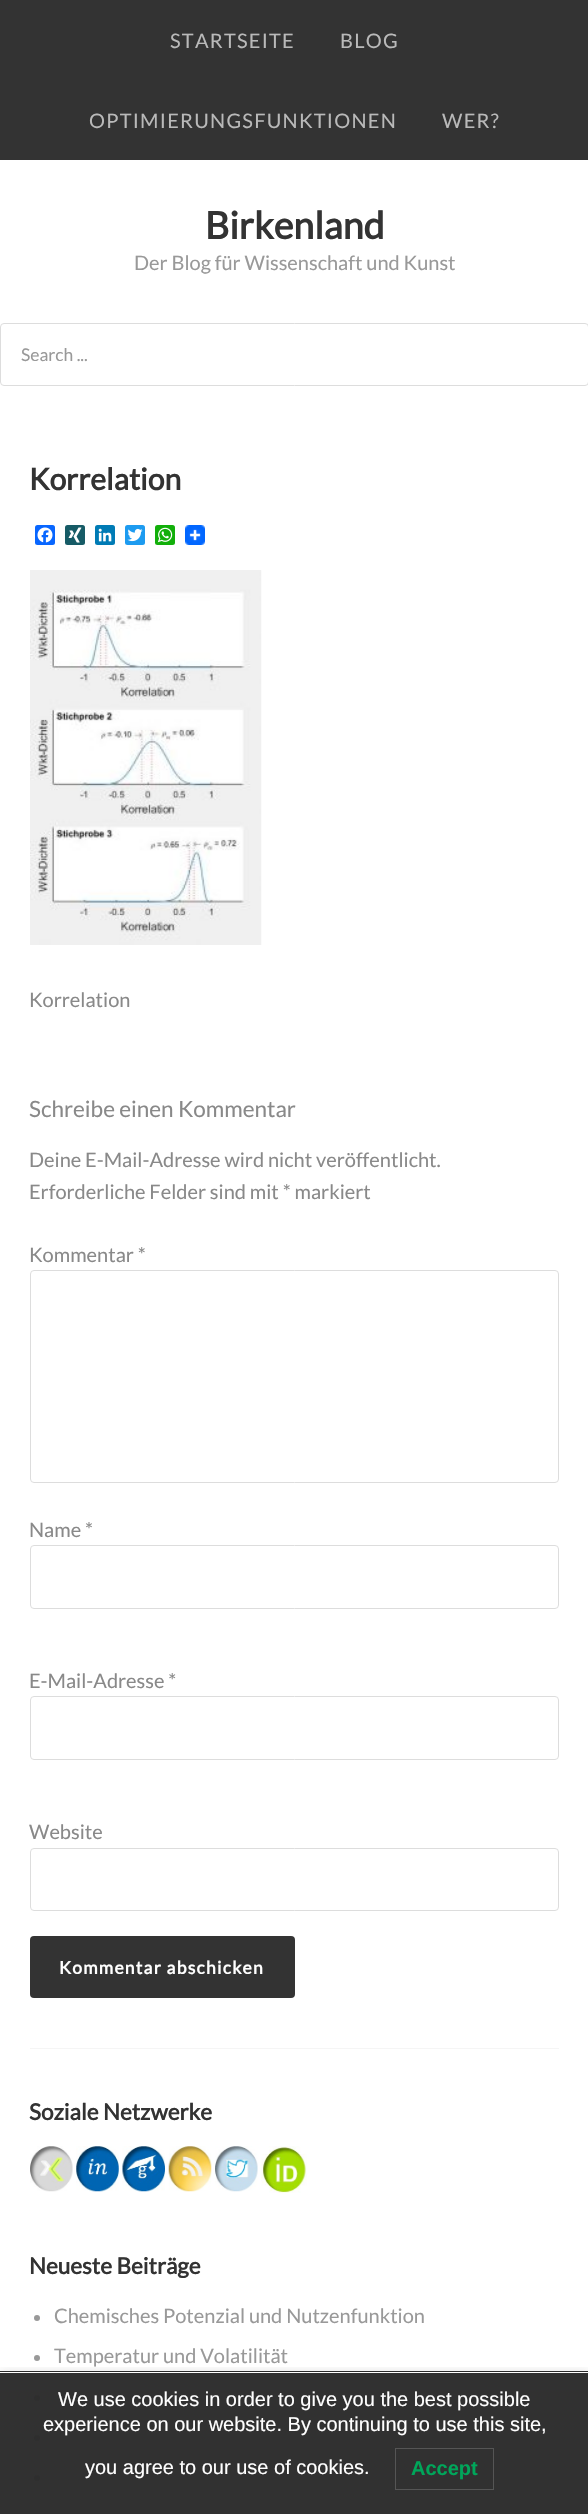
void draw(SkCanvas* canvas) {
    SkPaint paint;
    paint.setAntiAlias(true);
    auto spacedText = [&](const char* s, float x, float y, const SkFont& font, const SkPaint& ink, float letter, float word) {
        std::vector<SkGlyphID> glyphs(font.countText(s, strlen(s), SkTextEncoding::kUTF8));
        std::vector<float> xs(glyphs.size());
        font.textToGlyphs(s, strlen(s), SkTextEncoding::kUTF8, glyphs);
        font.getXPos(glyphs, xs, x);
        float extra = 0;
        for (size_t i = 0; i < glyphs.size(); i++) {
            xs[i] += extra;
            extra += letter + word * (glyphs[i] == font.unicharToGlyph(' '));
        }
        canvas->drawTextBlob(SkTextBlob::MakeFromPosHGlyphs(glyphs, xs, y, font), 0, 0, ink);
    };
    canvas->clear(0xFFFFFFFF);
    paint.setColor(0xFF313131);
    canvas->drawRect(SkRect::MakeXYWH(0, 2373, 588, 141), paint);
    paint.setColor(0xFF333333);
    canvas->drawRect(SkRect::MakeXYWH(0, 0, 588, 160), paint);
    SkFont font1(fontMgr->matchFamilyStyle("Lato", SkFontStyle::Normal()), 20);
    font1.setSubpixel(true);
    paint.setColor(0xFFB9B9B9);
    spacedText("STARTSEITE", 170, 48, font1, paint, 1.25f, 0);
    spacedText("BLOG", 340, 48, font1, paint, 1.25f, 0);
    spacedText("OPTIMIERUNGSFUNKTIONEN", 89, 128, font1, paint, 1.25f, 0);
    spacedText("WER?", 442, 128, font1, paint, 1.25f, 0);
    SkFont font2(fontMgr->matchFamilyStyle("Lato", SkFontStyle::Bold()), 37.5f);
    font2.setSubpixel(true);
    paint.setColor(0xFF333333);
    canvas->drawString("Birkenland", 205, 239, font2, paint);
    paint.setColor(0xFF999999);
    canvas->drawString("Der Blog für Wissenschaft und Kunst", 134, 270, font1, paint);
    paint.setStyle(SkPaint::kStroke_Style);
    paint.setStrokeWidth(1);
    paint.setColor(0xFFDDDDDD);
    canvas->drawRoundRect(SkRect::MakeXYWH(0.5f, 323.5f, 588, 62), 3.5f, 3.5f, paint);
    SkFont font3(fontMgr->matchFamilyStyle("Lato", SkFontStyle::Normal()), 17.5f);
    font3.setSubpixel(true);
    paint.setStyle(SkPaint::kFill_Style);
    paint.setColor(0xFF999999);
    canvas->drawString("Search ...", 21, 361, font3, paint);
    SkFont font4(fontMgr->matchFamilyStyle("Lato", SkFontStyle::Bold()), 30);
    font4.setSubpixel(true);
    paint.setColor(0xFF333333);
    canvas->drawString("Korrelation", 29, 490, font4, paint);
    paint.setColor(0xFF0866FF);
    canvas->drawRoundRect(SkRect::MakeXYWH(35, 525, 20, 20), 2.5f, 2.5f, paint);
    canvas->drawImageRect(SkImages::DeferredFromEncodedData(SkData::MakeFromFileName("img1.png")), SkRect::MakeXYWH(37, 527, 16, 16), SkSamplingOptions());
    paint.setColor(0xFF165B66);
    canvas->drawRoundRect(SkRect::MakeXYWH(65, 525, 20, 20), 2.5f, 2.5f, paint);
    canvas->drawImageRect(SkImages::DeferredFromEncodedData(SkData::MakeFromFileName("img2.png")), SkRect::MakeXYWH(68, 527, 14, 16), SkSamplingOptions());
    paint.setColor(0xFF007BB5);
    canvas->drawRoundRect(SkRect::MakeXYWH(95, 525, 20, 20), 2.5f, 2.5f, paint);
    canvas->drawImageRect(SkImages::DeferredFromEncodedData(SkData::MakeFromFileName("img3.png")), SkRect::MakeXYWH(98, 528, 14, 14), SkSamplingOptions());
    paint.setColor(0xFF1D9BF0);
    canvas->drawRoundRect(SkRect::MakeXYWH(125, 525, 20, 20), 2.5f, 2.5f, paint);
    canvas->drawImageRect(SkImages::DeferredFromEncodedData(SkData::MakeFromFileName("img4.png")), SkRect::MakeXYWH(127, 528, 16, 14), SkSamplingOptions());
    paint.setColor(0xFF12AF0A);
    canvas->drawRoundRect(SkRect::MakeXYWH(155, 525, 20, 20), 2.5f, 2.5f, paint);
    canvas->drawImageRect(SkImages::DeferredFromEncodedData(SkData::MakeFromFileName("img5.png")), SkRect::MakeXYWH(157, 527, 16, 16), SkSamplingOptions());
    canvas->drawImageRect(SkImages::DeferredFromEncodedData(SkData::MakeFromFileName("img6.png")), SkRect::MakeXYWH(185, 525, 20, 20), SkSamplingOptions());
    canvas->drawImageRect(SkImages::DeferredFromEncodedData(SkData::MakeFromFileName("img7.png")), SkRect::MakeXYWH(30, 570, 232, 375), SkSamplingOptions());
    paint.setColor(0xFF898989);
    canvas->drawString("Korrelation", 29, 1007, font1, paint);
    SkFont font5(fontMgr->matchFamilyStyle("Lato", SkFontStyle::Normal()), 22.5f);
    font5.setSubpixel(true);
    canvas->drawString("Schreibe einen Kommentar", 29, 1117, font5, paint);
    canvas->drawString("Deine E-Mail-Adresse wird nicht veröffentlicht.", 29, 1167, font1, paint);
    canvas->drawString("Erforderliche Felder sind mit * markiert", 29, 1199, font1, paint);
    canvas->drawString("Kommentar *", 29, 1262, font1, paint);
    paint.setStyle(SkPaint::kStroke_Style);
    paint.setColor(0xFFDDDDDD);
    canvas->drawRoundRect(SkRect::MakeXYWH(30.5f, 1270.5f, 528, 212), 3.5f, 3.5f, paint);
    paint.setStyle(SkPaint::kFill_Style);
    paint.setColor(0xFF898989);
    canvas->drawString("Name *", 29, 1537, font1, paint);
    paint.setStyle(SkPaint::kStroke_Style);
    paint.setColor(0xFFDDDDDD);
    canvas->drawRoundRect(SkRect::MakeXYWH(30.5f, 1545.5f, 528, 63), 3.5f, 3.5f, paint);
    paint.setStyle(SkPaint::kFill_Style);
    paint.setColor(0xFF898989);
    canvas->drawString("E-Mail-Adresse *", 29, 1688, font1, paint);
    paint.setStyle(SkPaint::kStroke_Style);
    paint.setColor(0xFFDDDDDD);
    canvas->drawRoundRect(SkRect::MakeXYWH(30.5f, 1696.5f, 528, 63), 3.5f, 3.5f, paint);
    paint.setStyle(SkPaint::kFill_Style);
    paint.setColor(0xFF898989);
    canvas->drawString("Website", 29, 1839, font1, paint);
    paint.setStyle(SkPaint::kStroke_Style);
    paint.setColor(0xFFDDDDDD);
    canvas->drawRoundRect(SkRect::MakeXYWH(30.5f, 1848.5f, 528, 62), 3.5f, 3.5f, paint);
    paint.setStyle(SkPaint::kFill_Style);
    paint.setColor(0xFF333333);
    canvas->drawRoundRect(SkRect::MakeXYWH(30, 1936, 265, 62), 4, 4, paint);
    SkFont font6(fontMgr->matchFamilyStyle("Lato", SkFontStyle::Bold()), 17.5f);
    font6.setSubpixel(true);
    paint.setColor(0xFFFFFFFF);
    spacedText("Kommentar abschicken", 59, 1974, font6, paint, 1.25f, 0);
    paint.setColor(0xFFF5F5F5);
    canvas->drawRect(SkRect::MakeXYWH(30, 2048, 529, 1), paint);
    SkFont font7(fontMgr->matchFamilyStyle("Lato", SkFontStyle::Bold()), 22.5f);
    font7.setSubpixel(true);
    paint.setColor(0xFF333333);
    canvas->drawString("Soziale Netzwerke", 29, 2120, font7, paint);
    canvas->drawImageRect(SkImages::DeferredFromEncodedData(SkData::MakeFromFileName("img8.png")), SkRect::MakeXYWH(30, 2146, 43, 46), SkSamplingOptions());
    canvas->drawImageRect(SkImages::DeferredFromEncodedData(SkData::MakeFromFileName("img9.png")), SkRect::MakeXYWH(76, 2146, 43, 46), SkSamplingOptions());
    canvas->drawImageRect(SkImages::DeferredFromEncodedData(SkData::MakeFromFileName("img10.png")), SkRect::MakeXYWH(122, 2146, 43, 46), SkSamplingOptions());
    canvas->drawImageRect(SkImages::DeferredFromEncodedData(SkData::MakeFromFileName("img11.png")), SkRect::MakeXYWH(168, 2146, 44, 46), SkSamplingOptions());
    canvas->drawImageRect(SkImages::DeferredFromEncodedData(SkData::MakeFromFileName("img12.png")), SkRect::MakeXYWH(215, 2146, 43, 46), SkSamplingOptions());
    canvas->drawImageRect(SkImages::DeferredFromEncodedData(SkData::MakeFromFileName("img13.png")), SkRect::MakeXYWH(261, 2146, 46, 47), SkSamplingOptions());
    canvas->drawString("Neueste Beiträge", 29, 2274, font7, paint);
    paint.setColor(0xFF999999);
    canvas->drawCircle(37, 2318, 3, paint);
    canvas->drawString("Chemisches Potenzial und Nutzenfunktion", 54, 2323, font1, paint);
    canvas->drawCircle(37, 2358, 3, paint);
    canvas->drawString("Temperatur und Volatilität", 54, 2363, font1, paint);
    paint.setColor(0xFF2E2E2E);
    canvas->drawCircle(37, 2398, 3, paint);
    canvas->drawCircle(37, 2438, 3, paint);
    canvas->drawCircle(37, 2478, 3, paint);
    canvas->save();
    canvas->clipRect(SkRect::MakeXYWH(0, 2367, 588, 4));
    paint.setColor(0x1A000000);
    paint.setMaskFilter(SkMaskFilter::MakeBlur(kNormal_SkBlurStyle, 5));
    canvas->drawRect(SkRect::MakeXYWH(0, 2371, 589, 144), paint);
    paint.setMaskFilter(nullptr);
    canvas->restore();
    paint.setColor(0xFF2B2B2B);
    canvas->drawRect(SkRect::MakeXYWH(0, 2371, 588, 1), paint);
    SkFont font8(fontMgr->matchFamilyStyle("Liberation Sans", SkFontStyle::Normal()), 20);
    font8.setSubpixel(true);
    paint.setColor(0xFFFFFFFF);
    canvas->drawString("We use cookies in order to give you the best possible", 58, 2406, font8, paint);
    canvas->drawString("experience on our website. By continuing to use this site,", 43, 2431, font8, paint);
    canvas->drawString("you agree to our use of cookies.", 85, 2474, font8, paint);
    paint.setStyle(SkPaint::kStroke_Style);
    paint.setColor(0xFF555555);
    canvas->drawRect(SkRect::MakeXYWH(395.5f, 2448.5f, 98, 41), paint);
    SkFont font9(fontMgr->matchFamilyStyle("Liberation Sans", SkFontStyle::Bold()), 20);
    font9.setSubpixel(true);
    paint.setStyle(SkPaint::kFill_Style);
    paint.setColor(0xFF00A65A);
    canvas->drawString("Accept", 411, 2475, font9, paint);
}
